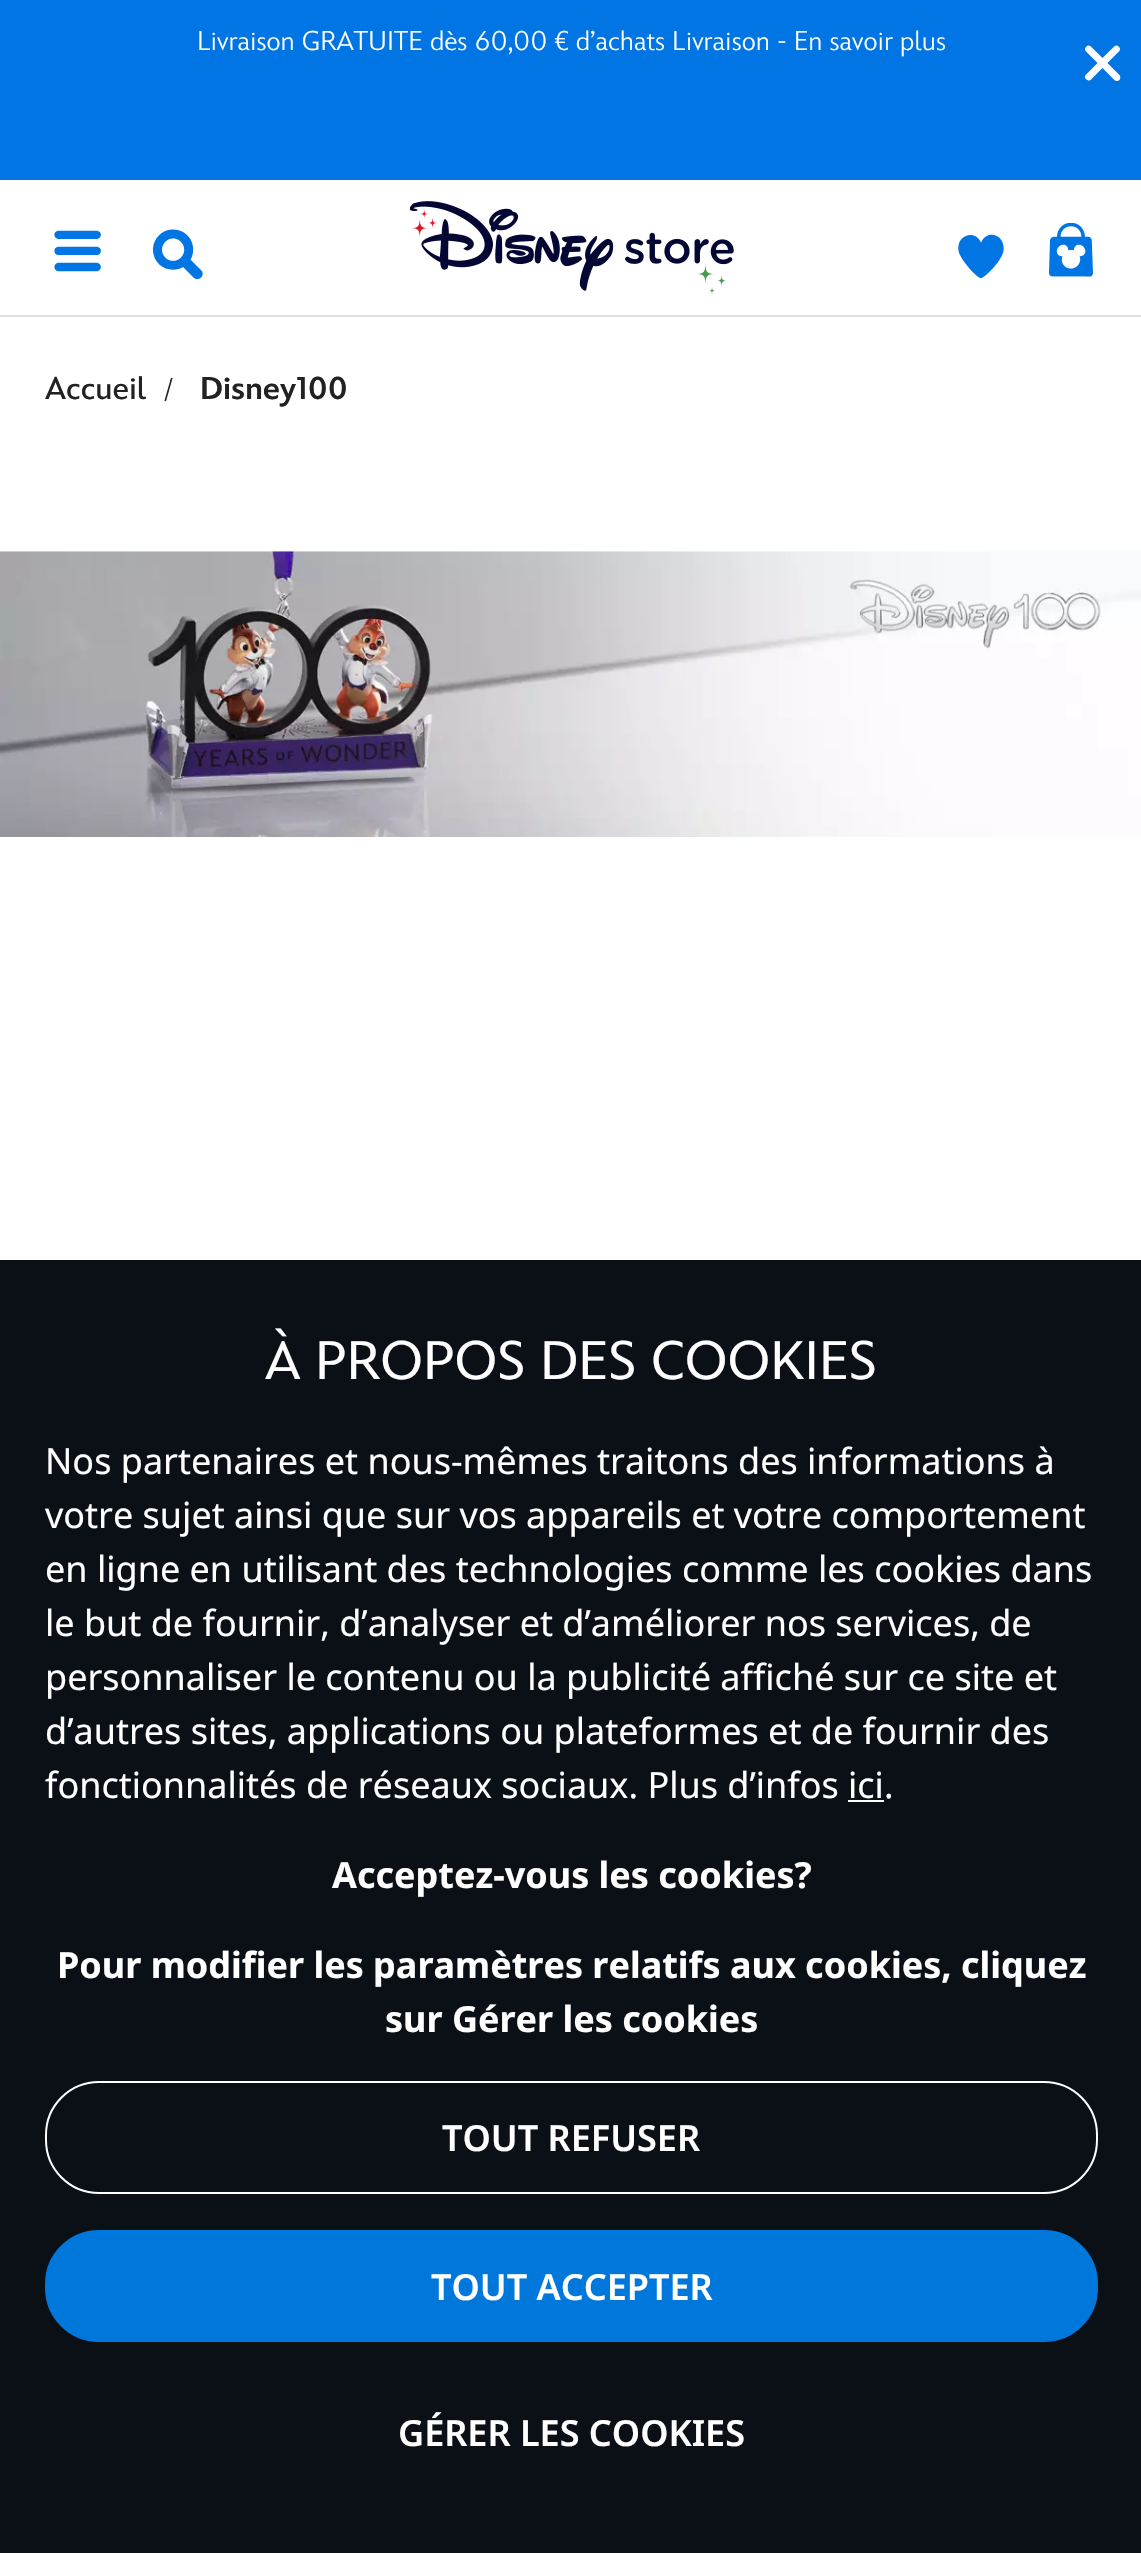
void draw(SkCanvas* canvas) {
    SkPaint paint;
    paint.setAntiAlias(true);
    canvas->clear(0xFFFFFFFF);
    paint.setColor(0xFF0075E3);
    canvas->drawRect(SkRect::MakeXYWH(0, 0, 1141, 180), paint);
    SkFont font1(fontMgr->matchFamilyStyle("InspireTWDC", SkFontStyle(300, SkFontStyle::kNormal_Width, SkFontStyle::kUpright_Slant)), 27);
    font1.setSubpixel(true);
    paint.setColor(0xFFFFFFFF);
    canvas->drawString("Livraison GRATUITE dès 60,00 € d’achats Livraison - En savoir plus", 197, 50, font1, paint);
    canvas->drawImageRect(SkImages::DeferredFromEncodedData(SkData::MakeFromFileName("img1.png")), SkRect::MakeXYWH(1085, 45, 36, 36), SkSamplingOptions());
    paint.setColor(0xFFDFDFDF);
    canvas->drawRect(SkRect::MakeXYWH(0, 315, 1141, 2), paint);
    canvas->drawImageRect(SkImages::DeferredFromEncodedData(SkData::MakeFromFileName("img2.png")), SkRect::MakeXYWH(410, 201, 324, 93), SkSamplingOptions());
    canvas->drawImageRect(SkImages::DeferredFromEncodedData(SkData::MakeFromFileName("img3.png")), SkRect::MakeXYWH(54, 230, 47, 42), SkSamplingOptions());
    canvas->drawImageRect(SkImages::DeferredFromEncodedData(SkData::MakeFromFileName("img4.png")), SkRect::MakeXYWH(152, 229, 51, 50), SkSamplingOptions());
    canvas->drawImageRect(SkImages::DeferredFromEncodedData(SkData::MakeFromFileName("img5.png")), SkRect::MakeXYWH(958, 234, 46, 45), SkSamplingOptions());
    canvas->drawImageRect(SkImages::DeferredFromEncodedData(SkData::MakeFromFileName("img6.png")), SkRect::MakeXYWH(1049, 223, 44, 54), SkSamplingOptions());
    SkFont font2(fontMgr->matchFamilyStyle("InspireTWDC", SkFontStyle(500, SkFontStyle::kNormal_Width, SkFontStyle::kUpright_Slant)), 31.5f);
    font2.setSubpixel(true);
    paint.setColor(0xFF222222);
    canvas->drawString("Accueil", 45, 399, font2, paint);
    canvas->drawString("/", 164, 399, font1, paint);
    SkFont font3(fontMgr->matchFamilyStyle("InspireTWDC", SkFontStyle(900, SkFontStyle::kNormal_Width, SkFontStyle::kUpright_Slant)), 31.5f);
    font3.setSubpixel(true);
    canvas->drawString("Disney100", 200, 399, font3, paint);
    canvas->drawImageRect(SkImages::DeferredFromEncodedData(SkData::MakeFromFileName("img7.png")), SkRect::MakeXYWH(0, 551, 1141, 286), SkSamplingOptions());
    paint.setColor(0xFF0A1016);
    canvas->drawRect(SkRect::MakeXYWH(0, 1260, 1141, 1293), paint);
    SkFont font4(fontMgr->matchFamilyStyle("InspireTWDC", SkFontStyle::Normal()), 54);
    font4.setSubpixel(true);
    paint.setColor(0xFFFFFFFF);
    canvas->drawString("À PROPOS DES COOKIES", 265, 1379, font4, paint);
    SkFont font5(fontMgr->matchFamilyStyle("Noto Sans", SkFontStyle::Normal()), 36);
    font5.setSubpixel(true);
    canvas->drawString("Nos partenaires et nous-mêmes traitons des informations à", 45, 1474, font5, paint);
    canvas->drawString("votre sujet ainsi que sur vos appareils et votre comportement", 45, 1528, font5, paint);
    canvas->drawString("en ligne en utilisant des technologies comme les cookies dans", 45, 1582, font5, paint);
    canvas->drawString("le but de fournir, d’analyser et d’améliorer nos services, de", 45, 1636, font5, paint);
    canvas->drawString("personnaliser le contenu ou la publicité affiché sur ce site et", 45, 1690, font5, paint);
    canvas->drawString("d’autres sites, applications ou plateformes et de fournir des", 45, 1744, font5, paint);
    canvas->drawString("fonctionnalités de réseaux sociaux. Plus d’infos ici.", 45, 1798, font5, paint);
    canvas->drawRect(SkRect::MakeXYWH(848, 1800, 36, 2), paint);
    SkFont font6(fontMgr->matchFamilyStyle("Noto Sans", SkFontStyle::Bold()), 36);
    font6.setSubpixel(true);
    canvas->drawString("Acceptez-vous les cookies?", 332, 1888, font6, paint);
    canvas->drawString("Pour modifier les paramètres relatifs aux cookies, cliquez", 57, 1978, font6, paint);
    canvas->drawString("sur Gérer les cookies", 385, 2032, font6, paint);
    paint.setStyle(SkPaint::kStroke_Style);
    paint.setStrokeWidth(2);
    canvas->drawRoundRect(SkRect::MakeXYWH(46, 2082, 1051, 111), 53, 53, paint);
    SkFont font7(fontMgr->matchFamilyStyle("Noto Sans", SkFontStyle(600, SkFontStyle::kNormal_Width, SkFontStyle::kUpright_Slant)), 36);
    font7.setSubpixel(true);
    paint.setStyle(SkPaint::kFill_Style);
    canvas->drawString("TOUT REFUSER", 442, 2151, font7, paint);
    paint.setColor(0xFF0077DA);
    canvas->drawRoundRect(SkRect::MakeXYWH(46, 2231, 1051, 110), 53, 53, paint);
    paint.setStyle(SkPaint::kStroke_Style);
    canvas->drawRoundRect(SkRect::MakeXYWH(46, 2231, 1051, 110), 53, 53, paint);
    paint.setStyle(SkPaint::kFill_Style);
    paint.setColor(0xFFFFFFFF);
    canvas->drawString("TOUT ACCEPTER", 431, 2300, font7, paint);
    canvas->drawString("GÉRER LES COOKIES", 398, 2446, font7, paint);
}
